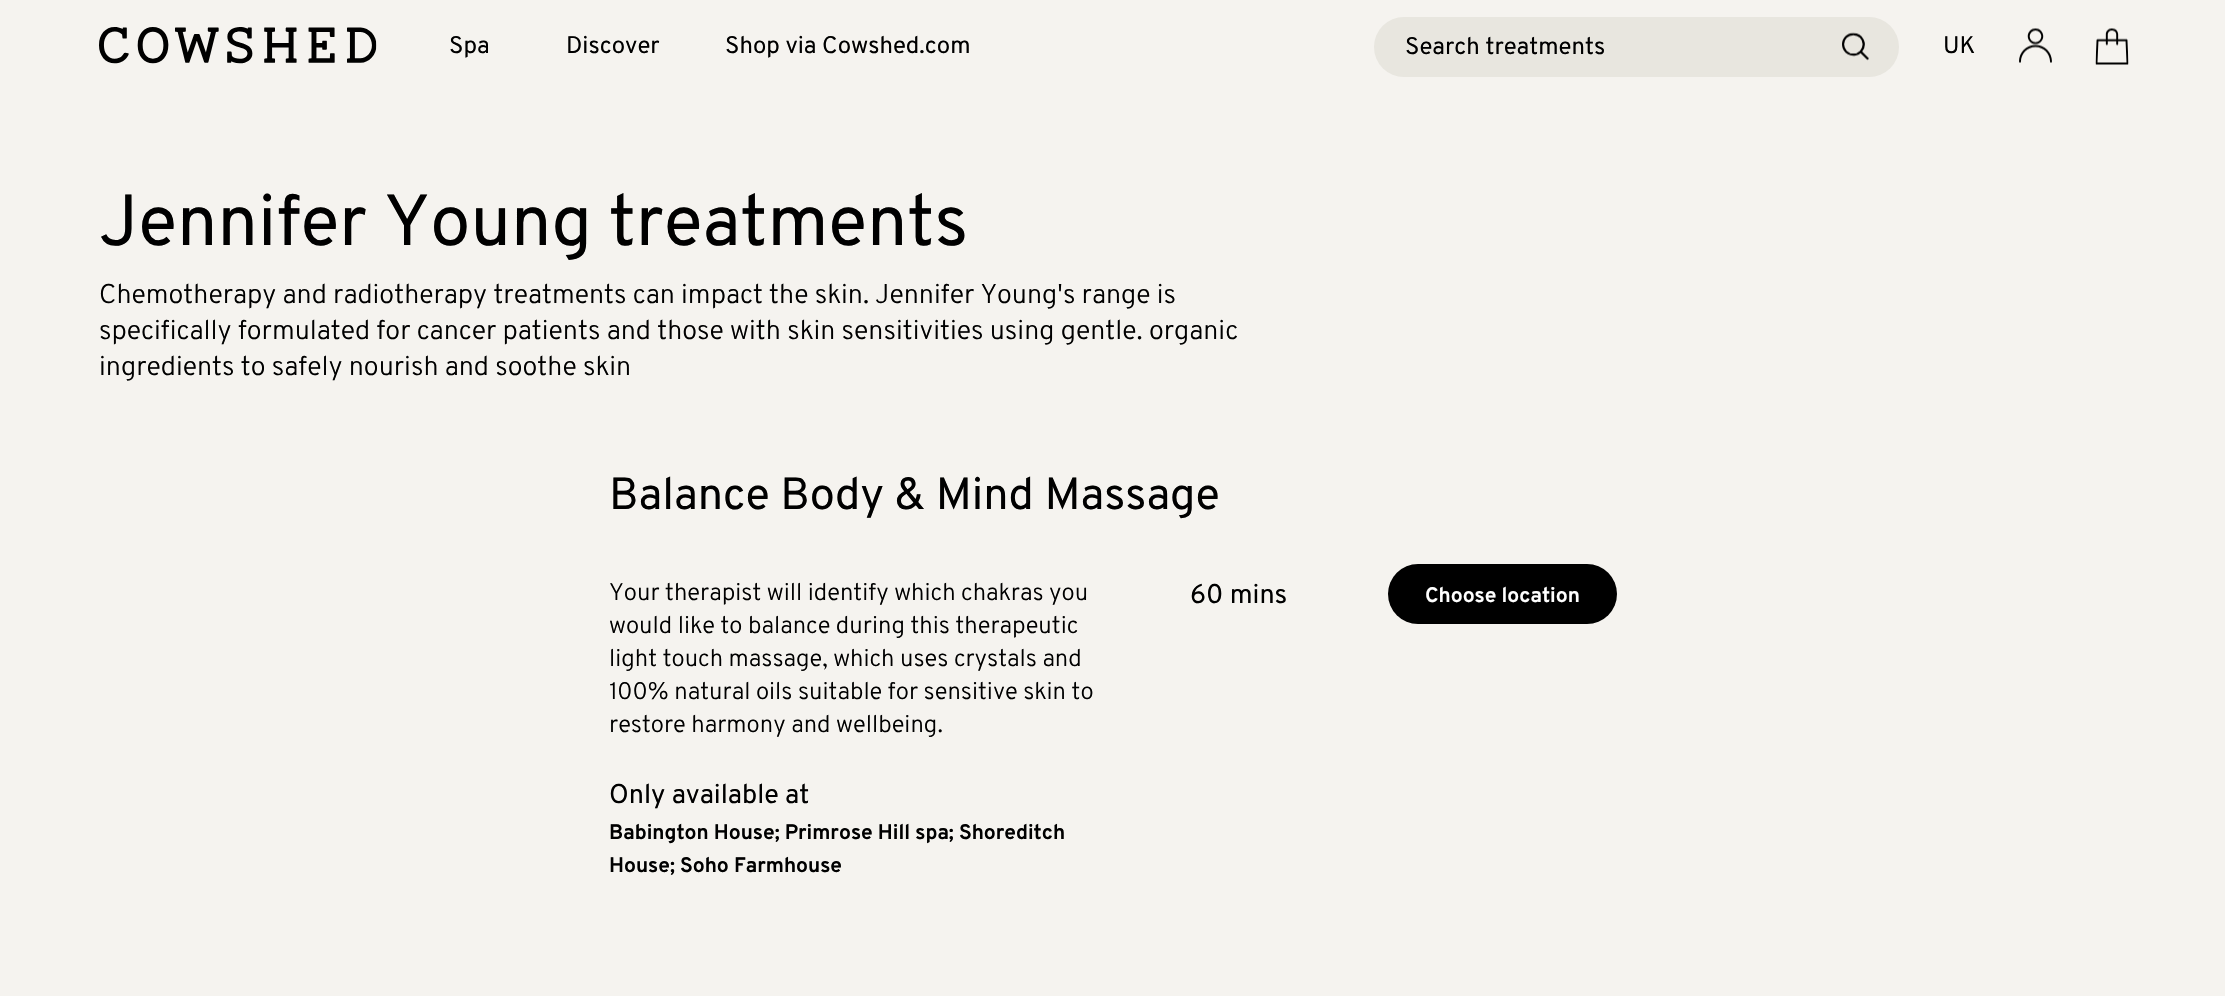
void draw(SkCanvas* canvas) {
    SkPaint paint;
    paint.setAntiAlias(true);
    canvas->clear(0xFFF5F3EF);
    canvas->drawImageRect(SkImages::DeferredFromEncodedData(SkData::MakeFromFileName("img1.png")), SkRect::MakeXYWH(99, 27, 278, 37), SkSamplingOptions());
    SkFont font1(fontMgr->matchFamilyStyle("Overpass", SkFontStyle::Normal()), 24);
    font1.setSubpixel(true);
    paint.setColor(0xFF000000);
    canvas->drawString("Spa", 449, 53, font1, paint);
    canvas->drawString("Discover", 566, 53, font1, paint);
    canvas->drawString("Shop via Cowshed.com", 725, 53, font1, paint);
    paint.setColor(0xFFE8E6DF);
    canvas->drawRoundRect(SkRect::MakeXYWH(1374, 17, 525, 60), 30, 30, paint);
    paint.setColor(0xFF000000);
    canvas->drawString("Search treatments", 1405, 54, font1, paint);
    canvas->drawImageRect(SkImages::DeferredFromEncodedData(SkData::MakeFromFileName("img2.png")), SkRect::MakeXYWH(1842, 32, 27, 29), SkSamplingOptions());
    canvas->drawString("UK", 1943, 53, font1, paint);
    canvas->drawImageRect(SkImages::DeferredFromEncodedData(SkData::MakeFromFileName("img3.png")), SkRect::MakeXYWH(2019, 28, 33, 35), SkSamplingOptions());
    canvas->drawImageRect(SkImages::DeferredFromEncodedData(SkData::MakeFromFileName("img4.png")), SkRect::MakeXYWH(2095, 28, 34, 37), SkSamplingOptions());
    SkFont font2(fontMgr->matchFamilyStyle("Overpass", SkFontStyle::Normal()), 72);
    font2.setSubpixel(true);
    canvas->drawString("Jennifer Young treatments", 99, 245, font2, paint);
    SkFont font3(fontMgr->matchFamilyStyle("Overpass", SkFontStyle(300, SkFontStyle::kNormal_Width, SkFontStyle::kUpright_Slant)), 27);
    font3.setSubpixel(true);
    canvas->drawString("Chemotherapy and radiotherapy treatments can impact the skin. Jennifer Young's range is", 99, 303, font3, paint);
    canvas->drawString("specifically formulated for cancer patients and those with skin sensitivities using gentle. organic", 99, 339, font3, paint);
    canvas->drawString("ingredients to safely nourish and soothe skin", 99, 375, font3, paint);
    SkFont font4(fontMgr->matchFamilyStyle("Overpass", SkFontStyle::Normal()), 45);
    font4.setSubpixel(true);
    canvas->drawString("Balance Body & Mind Massage", 609, 509, font4, paint);
    SkFont font5(fontMgr->matchFamilyStyle("Overpass", SkFontStyle(300, SkFontStyle::kNormal_Width, SkFontStyle::kUpright_Slant)), 24);
    font5.setSubpixel(true);
    canvas->drawString("Your therapist will identify which chakras you", 609, 600, font5, paint);
    canvas->drawString("would like to balance during this therapeutic", 609, 633, font5, paint);
    canvas->drawString("light touch massage, which uses crystals and", 609, 666, font5, paint);
    canvas->drawString("100% natural oils suitable for sensitive skin to", 609, 699, font5, paint);
    canvas->drawString("restore harmony and wellbeing.", 609, 732, font5, paint);
    SkFont font6(fontMgr->matchFamilyStyle("Overpass", SkFontStyle::Normal()), 27);
    font6.setSubpixel(true);
    canvas->drawString("60 mins", 1190, 603, font6, paint);
    canvas->drawRoundRect(SkRect::MakeXYWH(1388, 564, 229, 60), 30, 30, paint);
    SkFont font7(fontMgr->matchFamilyStyle("Overpass", SkFontStyle::Bold()), 21);
    font7.setSubpixel(true);
    paint.setColor(0xFFFFFFFF);
    canvas->drawString("Choose location", 1425, 602, font7, paint);
    paint.setColor(0xFF000000);
    canvas->drawString("Only available at", 609, 803, font6, paint);
    canvas->drawString("Babington House; Primrose Hill spa; Shoreditch", 609, 839, font7, paint);
    canvas->drawString("House; Soho Farmhouse", 609, 872, font7, paint);
}
